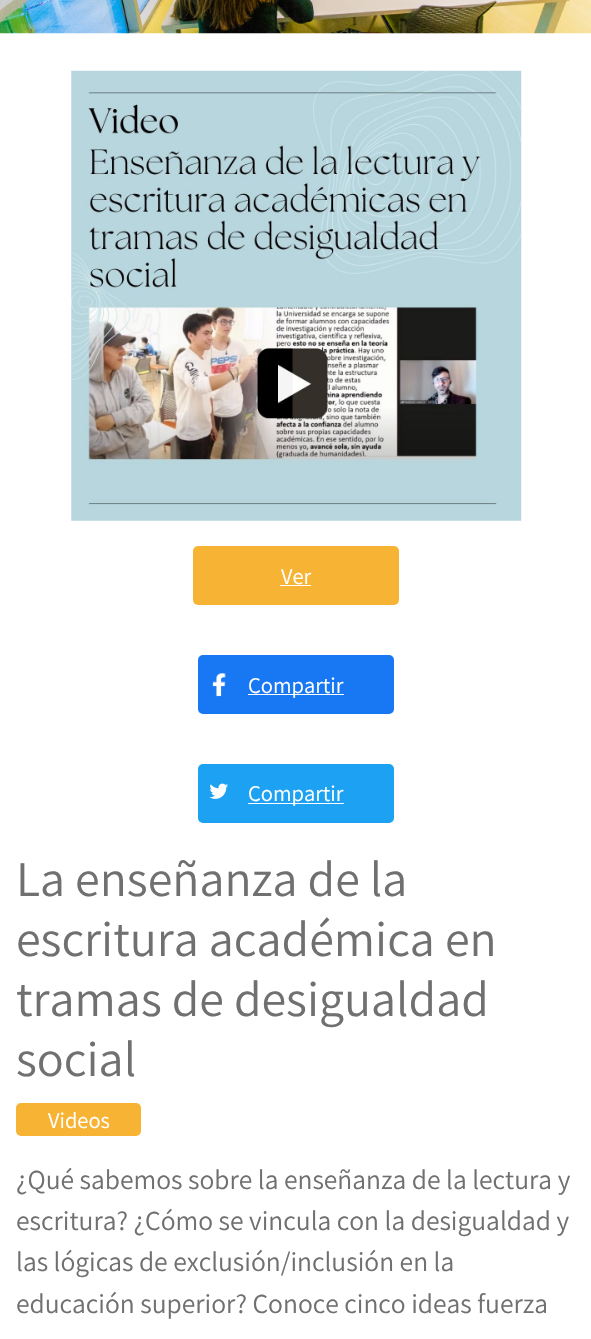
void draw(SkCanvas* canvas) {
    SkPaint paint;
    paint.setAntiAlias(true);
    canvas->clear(0xFFFFFFFF);
    canvas->drawImageRect(SkImages::DeferredFromEncodedData(SkData::MakeFromFileName("img1.png")), SkRect::MakeXYWH(0, 0, 591, 34), SkSamplingOptions());
    canvas->drawImageRect(SkImages::DeferredFromEncodedData(SkData::MakeFromFileName("img2.png")), SkRect::MakeXYWH(71, 70, 451, 451), SkSamplingOptions());
    paint.setColor(0xFFF7B334);
    canvas->drawRoundRect(SkRect::MakeXYWH(193, 546, 206, 59), 5, 5, paint);
    SkFont font1(fontMgr->matchFamilyStyle("Assistant", SkFontStyle::Normal()), 22.5f);
    font1.setSubpixel(true);
    paint.setColor(0xFFFFFFFF);
    canvas->drawString("Ver", 281, 584, font1, paint);
    canvas->drawRect(SkRect::MakeXYWH(280, 585, 31, 1), paint);
    paint.setColor(0xFF1877F2);
    canvas->drawRoundRect(SkRect::MakeXYWH(198, 655, 196, 59), 5, 5, paint);
    canvas->drawImageRect(SkImages::DeferredFromEncodedData(SkData::MakeFromFileName("img3.png")), SkRect::MakeXYWH(212, 673, 14, 24), SkSamplingOptions());
    paint.setColor(0xFFFFFFFF);
    canvas->drawRect(SkRect::MakeXYWH(248, 694, 96, 1), paint);
    canvas->drawString("Compartir", 248, 693, font1, paint);
    paint.setColor(0xFF1DA1F2);
    canvas->drawRoundRect(SkRect::MakeXYWH(198, 764, 196, 59), 5, 5, paint);
    canvas->drawImageRect(SkImages::DeferredFromEncodedData(SkData::MakeFromFileName("img4.png")), SkRect::MakeXYWH(209, 783, 19, 16), SkSamplingOptions());
    paint.setColor(0xFFFFFFFF);
    canvas->drawRect(SkRect::MakeXYWH(248, 803, 96, 1), paint);
    canvas->drawString("Compartir", 248, 801, font1, paint);
    SkFont font2(fontMgr->matchFamilyStyle("Assistant", SkFontStyle::Normal()), 50);
    font2.setSubpixel(true);
    paint.setColor(0xFF707070);
    canvas->drawString("La enseñanza de la", 16, 896, font2, paint);
    canvas->drawString("escritura académica en", 16, 956, font2, paint);
    canvas->drawString("tramas de desigualdad", 16, 1016, font2, paint);
    canvas->drawString("social", 16, 1076, font2, paint);
    paint.setColor(0xFFF7B334);
    canvas->drawRoundRect(SkRect::MakeXYWH(16, 1103, 125, 33), 5, 5, paint);
    paint.setColor(0xFFFFFFFF);
    canvas->drawString("Videos", 48, 1128, font1, paint);
    SkFont font3(fontMgr->matchFamilyStyle("Assistant", SkFontStyle::Normal()), 27.5f);
    font3.setSubpixel(true);
    paint.setColor(0xFF707070);
    canvas->drawString("¿Qué sabemos sobre la enseñanza de la lectura y", 16, 1189, font3, paint);
    canvas->drawString("escritura? ¿Cómo se vincula con la desigualdad y", 16, 1230, font3, paint);
    canvas->drawString("las lógicas de exclusión/inclusión en la", 16, 1271, font3, paint);
    canvas->drawString("educación superior? Conoce cinco ideas fuerza", 16, 1313, font3, paint);
}
